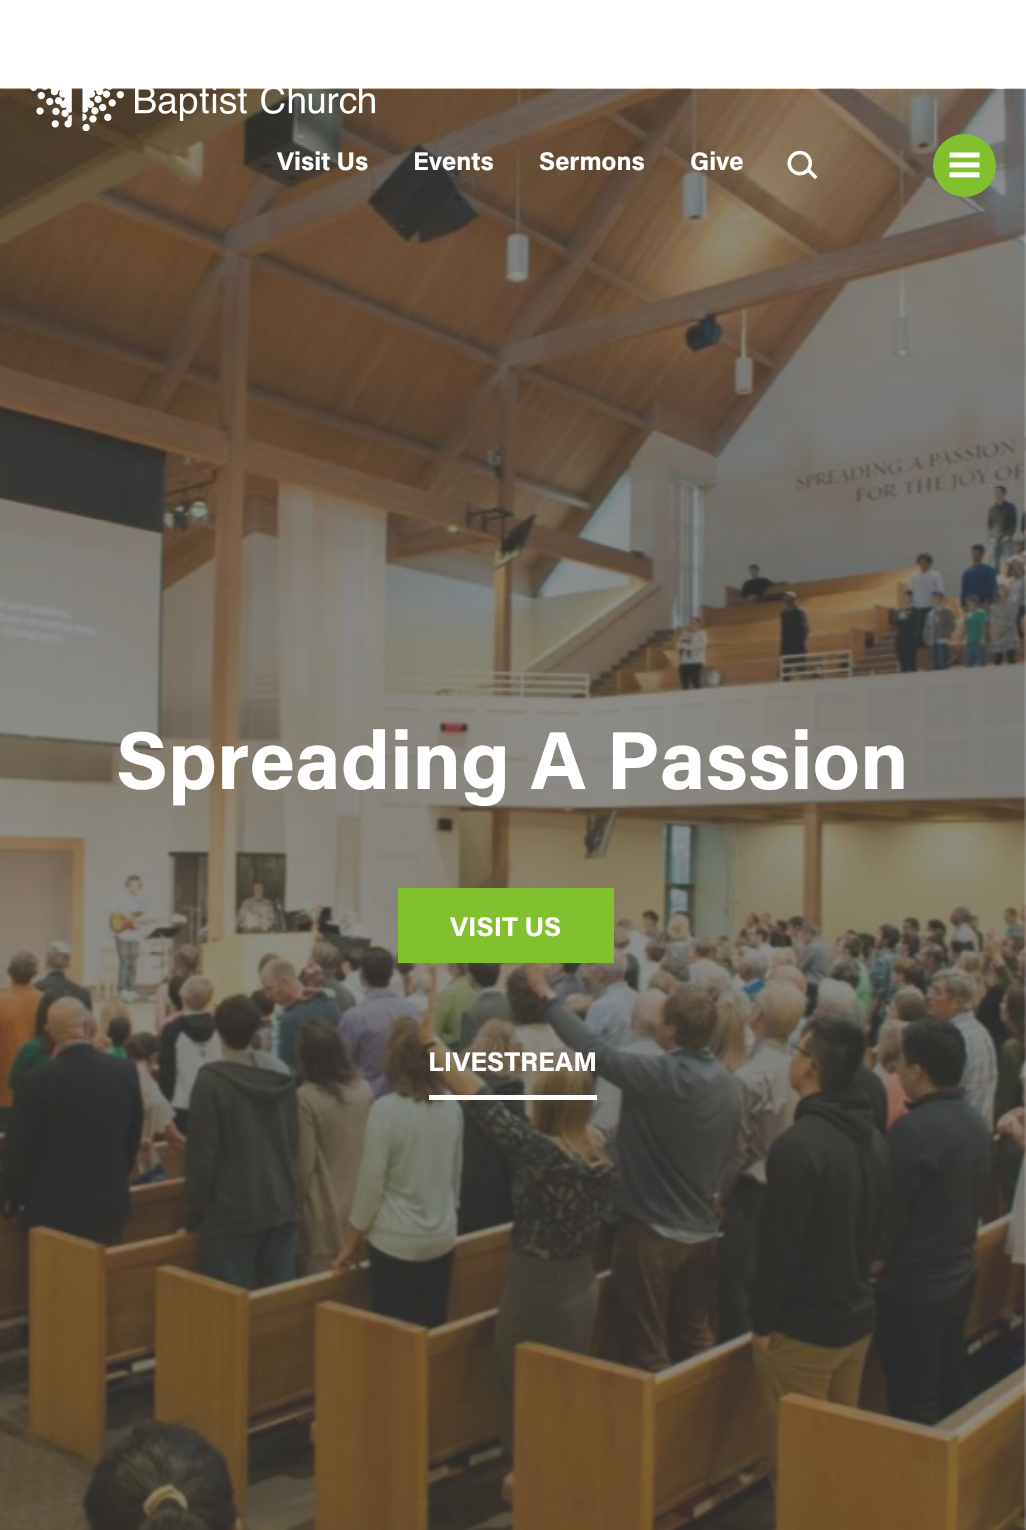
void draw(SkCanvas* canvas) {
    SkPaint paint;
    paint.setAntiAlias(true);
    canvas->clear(0xFFFFFFFF);
    canvas->drawImageRect(SkImages::DeferredFromEncodedData(SkData::MakeFromFileName("img4.png")), SkRect::MakeXYWH(0, 88, 1026, 1442), SkSamplingOptions());
    canvas->drawImageRect(SkImages::DeferredFromEncodedData(SkData::MakeFromFileName("img1.png")), SkRect::MakeXYWH(30, 88, 345, 43), SkSamplingOptions());
    SkFont font1(fontMgr->matchFamilyStyle("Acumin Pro", SkFontStyle::Bold()), 25.5f);
    font1.setSubpixel(true);
    paint.setColor(0xFFFFFFFF);
    canvas->drawString("Visit Us", 277, 170, font1, paint);
    canvas->drawString("Events", 413, 170, font1, paint);
    canvas->drawString("Sermons", 539, 170, font1, paint);
    canvas->drawString("Give", 690, 170, font1, paint);
    canvas->drawImageRect(SkImages::DeferredFromEncodedData(SkData::MakeFromFileName("img2.png")), SkRect::MakeXYWH(787, 150, 31, 30), SkSamplingOptions());
    paint.setColor(0xFF81C12D);
    canvas->drawCircle(964.5f, 165.5f, 31.5f, paint);
    canvas->drawImageRect(SkImages::DeferredFromEncodedData(SkData::MakeFromFileName("img3.png")), SkRect::MakeXYWH(949, 152, 31, 26), SkSamplingOptions());
    SkFont font2(fontMgr->matchFamilyStyle("Acumin Pro", SkFontStyle::Bold()), 82);
    font2.setSubpixel(true);
    paint.setColor(0xFFFFFFFF);
    canvas->drawString("Spreading A Passion", 116, 789, font2, paint);
    paint.setColor(0xFF81C12D);
    canvas->drawRect(SkRect::MakeXYWH(398, 888, 216, 75), paint);
    SkFont font3(fontMgr->matchFamilyStyle("Acumin Pro", SkFontStyle::Bold()), 27);
    font3.setSubpixel(true);
    paint.setColor(0xFFFFFFFF);
    canvas->drawString("VISIT US", 450, 936, font3, paint);
    canvas->drawString("LIVESTREAM", 428, 1071, font3, paint);
    canvas->drawRect(SkRect::MakeXYWH(429, 1095, 168, 5), paint);
}
